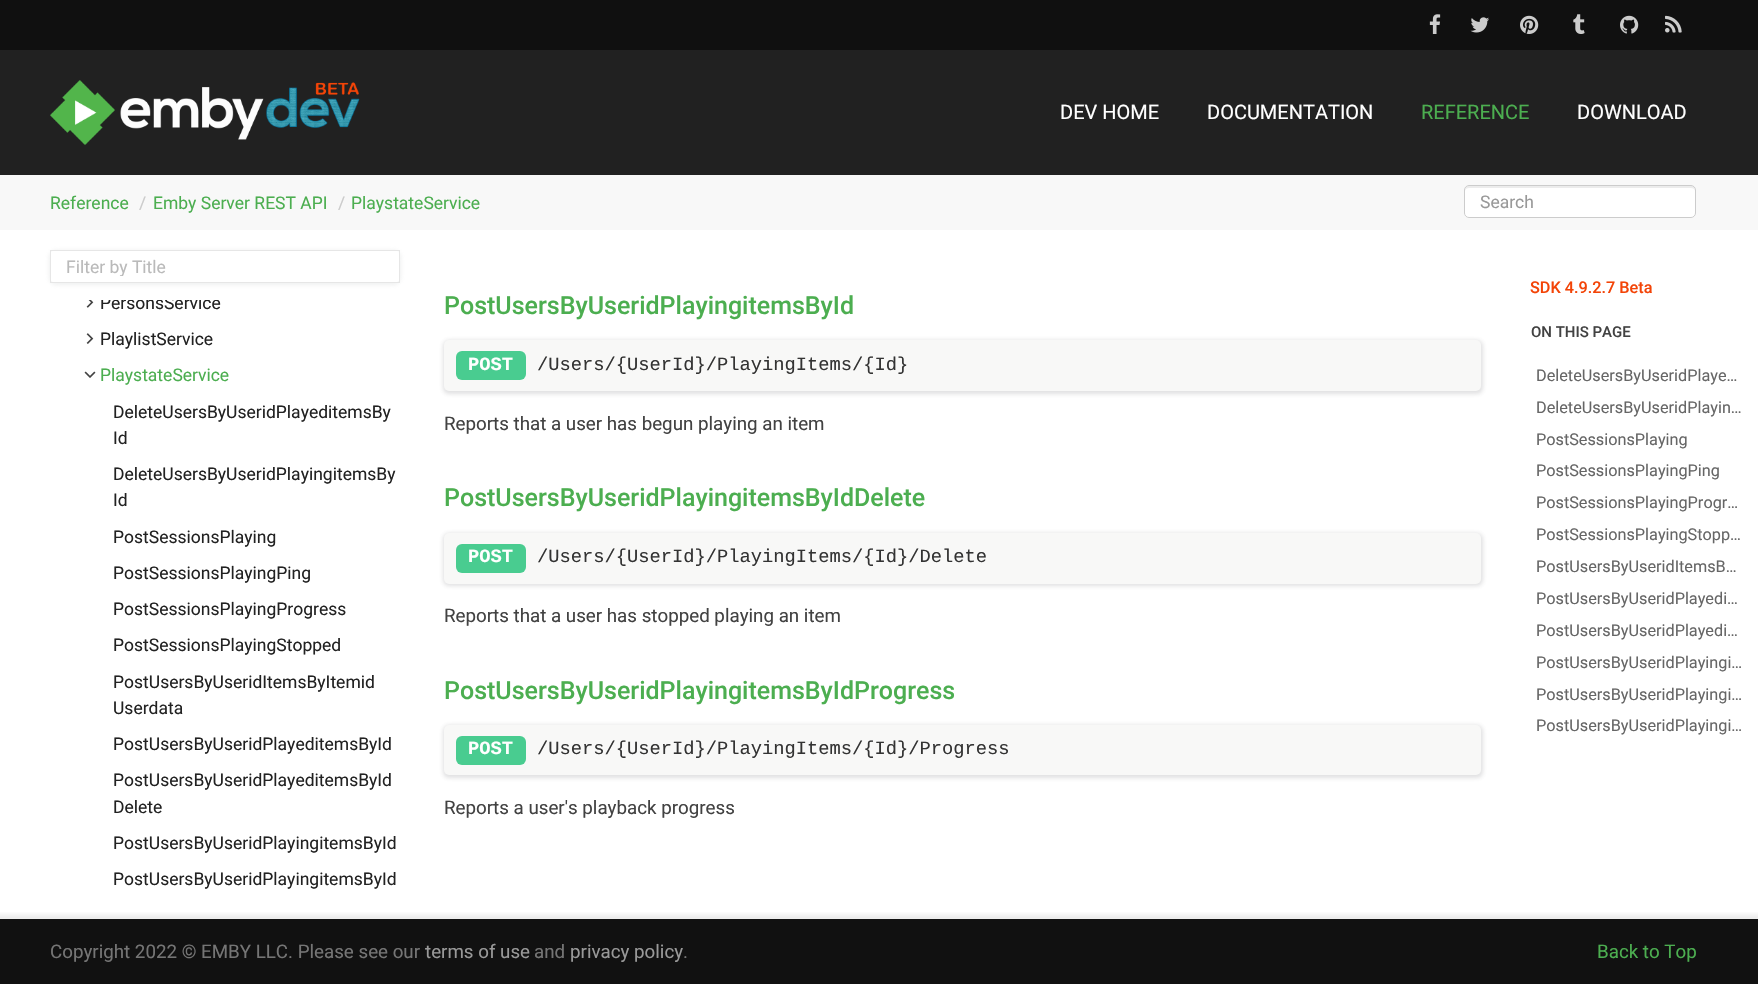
void draw(SkCanvas* canvas) {
    SkPaint paint;
    paint.setAntiAlias(true);
    canvas->clear(0xFFFFFFFF);
    paint.setColor(0xFF212121);
    canvas->drawRect(SkRect::MakeXYWH(0, 50, 1758, 125), paint);
    paint.setColor(0xFF101010);
    canvas->drawRect(SkRect::MakeXYWH(0, 0, 1758, 50), paint);
    canvas->drawImageRect(SkImages::DeferredFromEncodedData(SkData::MakeFromFileName("img1.png")), SkRect::MakeXYWH(1429, 14, 12, 20), SkSamplingOptions());
    canvas->drawImageRect(SkImages::DeferredFromEncodedData(SkData::MakeFromFileName("img2.png")), SkRect::MakeXYWH(1470, 17, 19, 16), SkSamplingOptions());
    canvas->drawImageRect(SkImages::DeferredFromEncodedData(SkData::MakeFromFileName("img3.png")), SkRect::MakeXYWH(1520, 15, 19, 19), SkSamplingOptions());
    canvas->drawImageRect(SkImages::DeferredFromEncodedData(SkData::MakeFromFileName("img4.png")), SkRect::MakeXYWH(1573, 14, 12, 20), SkSamplingOptions());
    canvas->drawImageRect(SkImages::DeferredFromEncodedData(SkData::MakeFromFileName("img5.png")), SkRect::MakeXYWH(1620, 15, 19, 19), SkSamplingOptions());
    canvas->drawImageRect(SkImages::DeferredFromEncodedData(SkData::MakeFromFileName("img6.png")), SkRect::MakeXYWH(1665, 15, 17, 18), SkSamplingOptions());
    canvas->drawImageRect(SkImages::DeferredFromEncodedData(SkData::MakeFromFileName("img7.png")), SkRect::MakeXYWH(50, 80, 310, 65), SkSamplingOptions());
    SkFont font1(fontMgr->matchFamilyStyle("Roboto", SkFontStyle::Normal()), 20);
    font1.setSubpixel(true);
    paint.setColor(0xFFFFFFFF);
    canvas->drawString("DEV HOME", 1060, 119, font1, paint);
    canvas->drawString("DOCUMENTATION", 1207, 119, font1, paint);
    paint.setColor(0xFF4CAE50);
    canvas->drawString("REFERENCE", 1421, 119, font1, paint);
    paint.setColor(0xFFFFFFFF);
    canvas->drawString("DOWNLOAD", 1577, 119, font1, paint);
    paint.setColor(0xFFF8F8F8);
    canvas->drawRect(SkRect::MakeXYWH(0, 175, 1758, 55), paint);
    SkFont font2(fontMgr->matchFamilyStyle("Roboto", SkFontStyle::Normal()), 17.5f);
    font2.setSubpixel(true);
    paint.setColor(0xFF4CAE50);
    canvas->drawString("Reference", 50, 209, font2, paint);
    paint.setColor(0xFFCCCCCC);
    canvas->drawString("/", 139, 209, font2, paint);
    paint.setColor(0xFF4CAE50);
    canvas->drawString("Emby Server REST API", 153, 209, font2, paint);
    paint.setColor(0xFFCCCCCC);
    canvas->drawString("/", 338, 209, font2, paint);
    paint.setColor(0xFF4CAE50);
    canvas->drawString("PlaystateService", 351, 209, font2, paint);
    paint.setColor(0xFFFFFFFF);
    canvas->drawRoundRect(SkRect::MakeXYWH(1464, 185, 232, 33), 5, 5, paint);
    paint.setColor(0xFFECECEC);
    canvas->drawPath(SkPathBuilder().moveTo(1469, 188).lineTo(1691, 188).cubicTo(1693, 188, 1695, 189, 1695, 191).cubicTo(1695, 188, 1694, 186, 1691, 186).lineTo(1469, 186).cubicTo(1466, 186, 1465, 188, 1465, 191).cubicTo(1465, 189, 1467, 188, 1469, 188).close().detach(), paint);
    paint.setStyle(SkPaint::kStroke_Style);
    paint.setStrokeWidth(1);
    paint.setColor(0xFFCCCCCC);
    canvas->drawRoundRect(SkRect::MakeXYWH(1464.5f, 185.5f, 231, 32), 4.5f, 4.5f, paint);
    paint.setStyle(SkPaint::kFill_Style);
    paint.setColor(0xFF999999);
    canvas->drawString("Search", 1480, 208, font2, paint);
    canvas->save();
    canvas->clipPath(SkPathBuilder(SkPathFillType::kEvenOdd).moveTo(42, 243).lineTo(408, 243).lineTo(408, 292).lineTo(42, 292).close().moveTo(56, 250).lineTo(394, 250).cubicTo(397.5f, 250, 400, 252.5f, 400, 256).lineTo(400, 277).cubicTo(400, 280.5f, 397.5f, 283, 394, 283).lineTo(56, 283).cubicTo(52.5f, 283, 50, 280.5f, 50, 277).lineTo(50, 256).cubicTo(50, 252.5f, 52.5f, 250, 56, 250).close().detach(), true);
    paint.setColor(0x299EA0A2);
    paint.setMaskFilter(SkMaskFilter::MakeBlur(kNormal_SkBlurStyle, 2));
    canvas->drawRoundRect(SkRect::MakeXYWH(49, 250, 352, 35), 8, 8, paint);
    paint.setMaskFilter(nullptr);
    canvas->restore();
    paint.setStyle(SkPaint::kStroke_Style);
    paint.setColor(0xFFE6E6E6);
    canvas->drawRect(SkRect::MakeXYWH(50.5f, 250.5f, 349, 32), paint);
    canvas->save();
    canvas->clipRect(SkRect::MakeXYWH(66, 256, 318, 20));
    paint.setStyle(SkPaint::kFill_Style);
    paint.setColor(0xFFBABABA);
    canvas->drawString("Filter by Title", 66, 273, font2, paint);
    canvas->restore();
    canvas->drawImageRect(SkImages::DeferredFromEncodedData(SkData::MakeFromFileName("img8.png")), SkRect::MakeXYWH(86, 300, 8, 8), SkSamplingOptions());
    canvas->save();
    canvas->clipRect(SkRect::MakeXYWH(50, 300, 350, 598));
    paint.setColor(0xFF222222);
    canvas->drawString("PersonsService", 100, 309, font2, paint);
    canvas->restore();
    canvas->drawImageRect(SkImages::DeferredFromEncodedData(SkData::MakeFromFileName("img9.png")), SkRect::MakeXYWH(86, 333, 8, 11), SkSamplingOptions());
    canvas->drawString("PlaylistService", 100, 345, font2, paint);
    canvas->drawImageRect(SkImages::DeferredFromEncodedData(SkData::MakeFromFileName("img10.png")), SkRect::MakeXYWH(84, 371, 12, 7), SkSamplingOptions());
    paint.setColor(0xFF4CAE50);
    canvas->drawString("PlaystateService", 100, 381, font2, paint);
    paint.setColor(0xFF222222);
    canvas->drawString("DeleteUsersByUseridPlayeditemsBy", 113, 418, font2, paint);
    canvas->drawString("Id", 113, 444, font2, paint);
    canvas->drawString("DeleteUsersByUseridPlayingitemsBy", 113, 480, font2, paint);
    canvas->drawString("Id", 113, 506, font2, paint);
    canvas->drawString("PostSessionsPlaying", 113, 543, font2, paint);
    canvas->drawString("PostSessionsPlayingPing", 113, 579, font2, paint);
    canvas->drawString("PostSessionsPlayingProgress", 113, 615, font2, paint);
    canvas->drawString("PostSessionsPlayingStopped", 113, 651, font2, paint);
    canvas->drawString("PostUsersByUseridItemsByItemid", 113, 688, font2, paint);
    canvas->drawString("Userdata", 113, 714, font2, paint);
    canvas->drawString("PostUsersByUseridPlayeditemsById", 113, 750, font2, paint);
    canvas->drawString("PostUsersByUseridPlayeditemsById", 113, 786, font2, paint);
    canvas->drawString("Delete", 113, 813, font2, paint);
    canvas->drawString("PostUsersByUseridPlayingitemsById", 113, 849, font2, paint);
    canvas->drawString("PostUsersByUseridPlayingitemsById", 113, 885, font2, paint);
    SkFont font3(fontMgr->matchFamilyStyle("Roboto", SkFontStyle(500, SkFontStyle::kNormal_Width, SkFontStyle::kUpright_Slant)), 25);
    font3.setSubpixel(true);
    paint.setColor(0xFF4CAE50);
    canvas->drawString("PostUsersByUseridPlayingitemsById", 444, 314, font3, paint);
    paint.setColor(0x293D4144);
    paint.setMaskFilter(SkMaskFilter::MakeBlur(kNormal_SkBlurStyle, 2));
    canvas->drawRoundRect(SkRect::MakeXYWH(443, 340, 1040, 54), 6, 6, paint);
    paint.setMaskFilter(nullptr);
    paint.setColor(0xFFF8F8F7);
    canvas->drawRoundRect(SkRect::MakeXYWH(444, 340, 1037, 51), 5, 5, paint);
    paint.setColor(0xFF49CC90);
    canvas->drawRoundRect(SkRect::MakeXYWH(456, 351, 70, 29), 6, 6, paint);
    SkFont font4(fontMgr->matchFamilyStyle("Liberation Mono", SkFontStyle::Bold()), 18.75f);
    font4.setSubpixel(true);
    paint.setColor(0xFFFFFFFF);
    canvas->drawString("POST", 468, 370, font4, paint);
    SkFont font5(fontMgr->matchFamilyStyle("Liberation Mono", SkFontStyle::Normal()), 18.75f);
    font5.setSubpixel(true);
    paint.setColor(0xFF333333);
    canvas->drawString("/Users/{UserId}/PlayingItems/{Id}", 537, 370, font5, paint);
    SkFont font6(fontMgr->matchFamilyStyle("Roboto", SkFontStyle::Normal()), 18.75f);
    font6.setSubpixel(true);
    paint.setColor(0xFF424242);
    canvas->drawString("Reports that a user has begun playing an item", 444, 430, font6, paint);
    paint.setColor(0xFF4CAE50);
    canvas->drawString("PostUsersByUseridPlayingitemsByIdDelete", 444, 506, font3, paint);
    paint.setColor(0x293D4144);
    paint.setMaskFilter(SkMaskFilter::MakeBlur(kNormal_SkBlurStyle, 2));
    canvas->drawRoundRect(SkRect::MakeXYWH(443, 533, 1040, 53), 6, 6, paint);
    paint.setMaskFilter(nullptr);
    paint.setColor(0xFFF8F8F7);
    canvas->drawRoundRect(SkRect::MakeXYWH(444, 533, 1037, 51), 5, 5, paint);
    paint.setColor(0xFF49CC90);
    canvas->drawRoundRect(SkRect::MakeXYWH(456, 544, 70, 29), 6, 6, paint);
    paint.setColor(0xFFFFFFFF);
    canvas->drawString("POST", 468, 562, font4, paint);
    paint.setColor(0xFF333333);
    canvas->drawString("/Users/{UserId}/PlayingItems/{Id}/Delete", 537, 562, font5, paint);
    paint.setColor(0xFF424242);
    canvas->drawString("Reports that a user has stopped playing an item", 444, 622, font6, paint);
    paint.setColor(0xFF4CAE50);
    canvas->drawString("PostUsersByUseridPlayingitemsByIdProgress", 444, 699, font3, paint);
    paint.setColor(0x293D4144);
    paint.setMaskFilter(SkMaskFilter::MakeBlur(kNormal_SkBlurStyle, 2));
    canvas->drawRoundRect(SkRect::MakeXYWH(443, 725, 1040, 53), 6, 6, paint);
    paint.setMaskFilter(nullptr);
    paint.setColor(0xFFF8F8F7);
    canvas->drawRoundRect(SkRect::MakeXYWH(444, 725, 1037, 50), 5, 5, paint);
    paint.setColor(0xFF49CC90);
    canvas->drawRoundRect(SkRect::MakeXYWH(456, 736, 70, 29), 6, 6, paint);
    paint.setColor(0xFFFFFFFF);
    canvas->drawString("POST", 468, 754, font4, paint);
    paint.setColor(0xFF333333);
    canvas->drawString("/Users/{UserId}/PlayingItems/{Id}/Progress", 537, 754, font5, paint);
    paint.setColor(0xFF424242);
    canvas->drawString("Reports a user's playback progress", 444, 814, font6, paint);
    SkFont font7(fontMgr->matchFamilyStyle("Roboto", SkFontStyle(500, SkFontStyle::kNormal_Width, SkFontStyle::kUpright_Slant)), 16.25f);
    font7.setSubpixel(true);
    paint.setColor(0xFFF34407);
    canvas->drawString("SDK 4.9.2.7 Beta", 1530, 293, font7, paint);
    SkFont font8(fontMgr->matchFamilyStyle("Roboto", SkFontStyle(500, SkFontStyle::kNormal_Width, SkFontStyle::kUpright_Slant)), 15);
    font8.setSubpixel(true);
    paint.setColor(0xFF424242);
    canvas->drawString("ON THIS PAGE", 1531, 337, font8, paint);
    SkFont font9(fontMgr->matchFamilyStyle("Roboto", SkFontStyle::Normal()), 16.25f);
    font9.setSubpixel(true);
    paint.setColor(0xFF666666);
    canvas->drawString("DeleteUsersByUseridPlaye…", 1536, 381, font9, paint);
    canvas->drawString("DeleteUsersByUseridPlayin…", 1536, 413, font9, paint);
    canvas->drawString("PostSessionsPlaying", 1536, 445, font9, paint);
    canvas->drawString("PostSessionsPlayingPing", 1536, 476, font9, paint);
    canvas->drawString("PostSessionsPlayingProgr…", 1536, 508, font9, paint);
    canvas->drawString("PostSessionsPlayingStopp…", 1536, 540, font9, paint);
    canvas->drawString("PostUsersByUseridItemsB…", 1536, 572, font9, paint);
    canvas->drawString("PostUsersByUseridPlayedi…", 1536, 604, font9, paint);
    canvas->drawString("PostUsersByUseridPlayedi…", 1536, 636, font9, paint);
    canvas->drawString("PostUsersByUseridPlayingi…", 1536, 668, font9, paint);
    canvas->drawString("PostUsersByUseridPlayingi…", 1536, 700, font9, paint);
    canvas->drawString("PostUsersByUseridPlayingi…", 1536, 731, font9, paint);
    {
        const SkColor colors[] = {0xFFFFFFFF, 0xFFEBEBEB};
        const float stops[] = {0, 1};
        const SkPoint ends[] = {{879, 911}, {879, 918}};
        paint.setShader(SkGradientShader::MakeLinear(ends, colors, stops, 2, SkTileMode::kClamp));
        paint.setAlpha(255);
    }
    canvas->drawRect(SkRect::MakeXYWH(0, 912, 1758, 6), paint);
    paint.setShader(nullptr);
    paint.setColor(0xFF111111);
    canvas->drawRect(SkRect::MakeXYWH(0, 919, 1758, 65), paint);
    paint.setColor(0xFFEDEDED);
    canvas->drawRect(SkRect::MakeXYWH(0, 918, 1758, 1), paint);
    paint.setColor(0xFF757575);
    canvas->drawString("Copyright 2022 © EMBY LLC. Please see our", 50, 958, font6, paint);
    paint.setColor(0xFF999999);
    canvas->drawString("terms of use", 425, 958, font6, paint);
    paint.setColor(0xFF757575);
    canvas->drawString("and", 534, 958, font6, paint);
    paint.setColor(0xFF999999);
    canvas->drawString("privacy policy", 570, 958, font6, paint);
    paint.setColor(0xFF757575);
    canvas->drawString(".", 683, 958, font6, paint);
    paint.setColor(0xFF4CAE50);
    canvas->drawString("Back to Top", 1597, 958, font6, paint);
}
